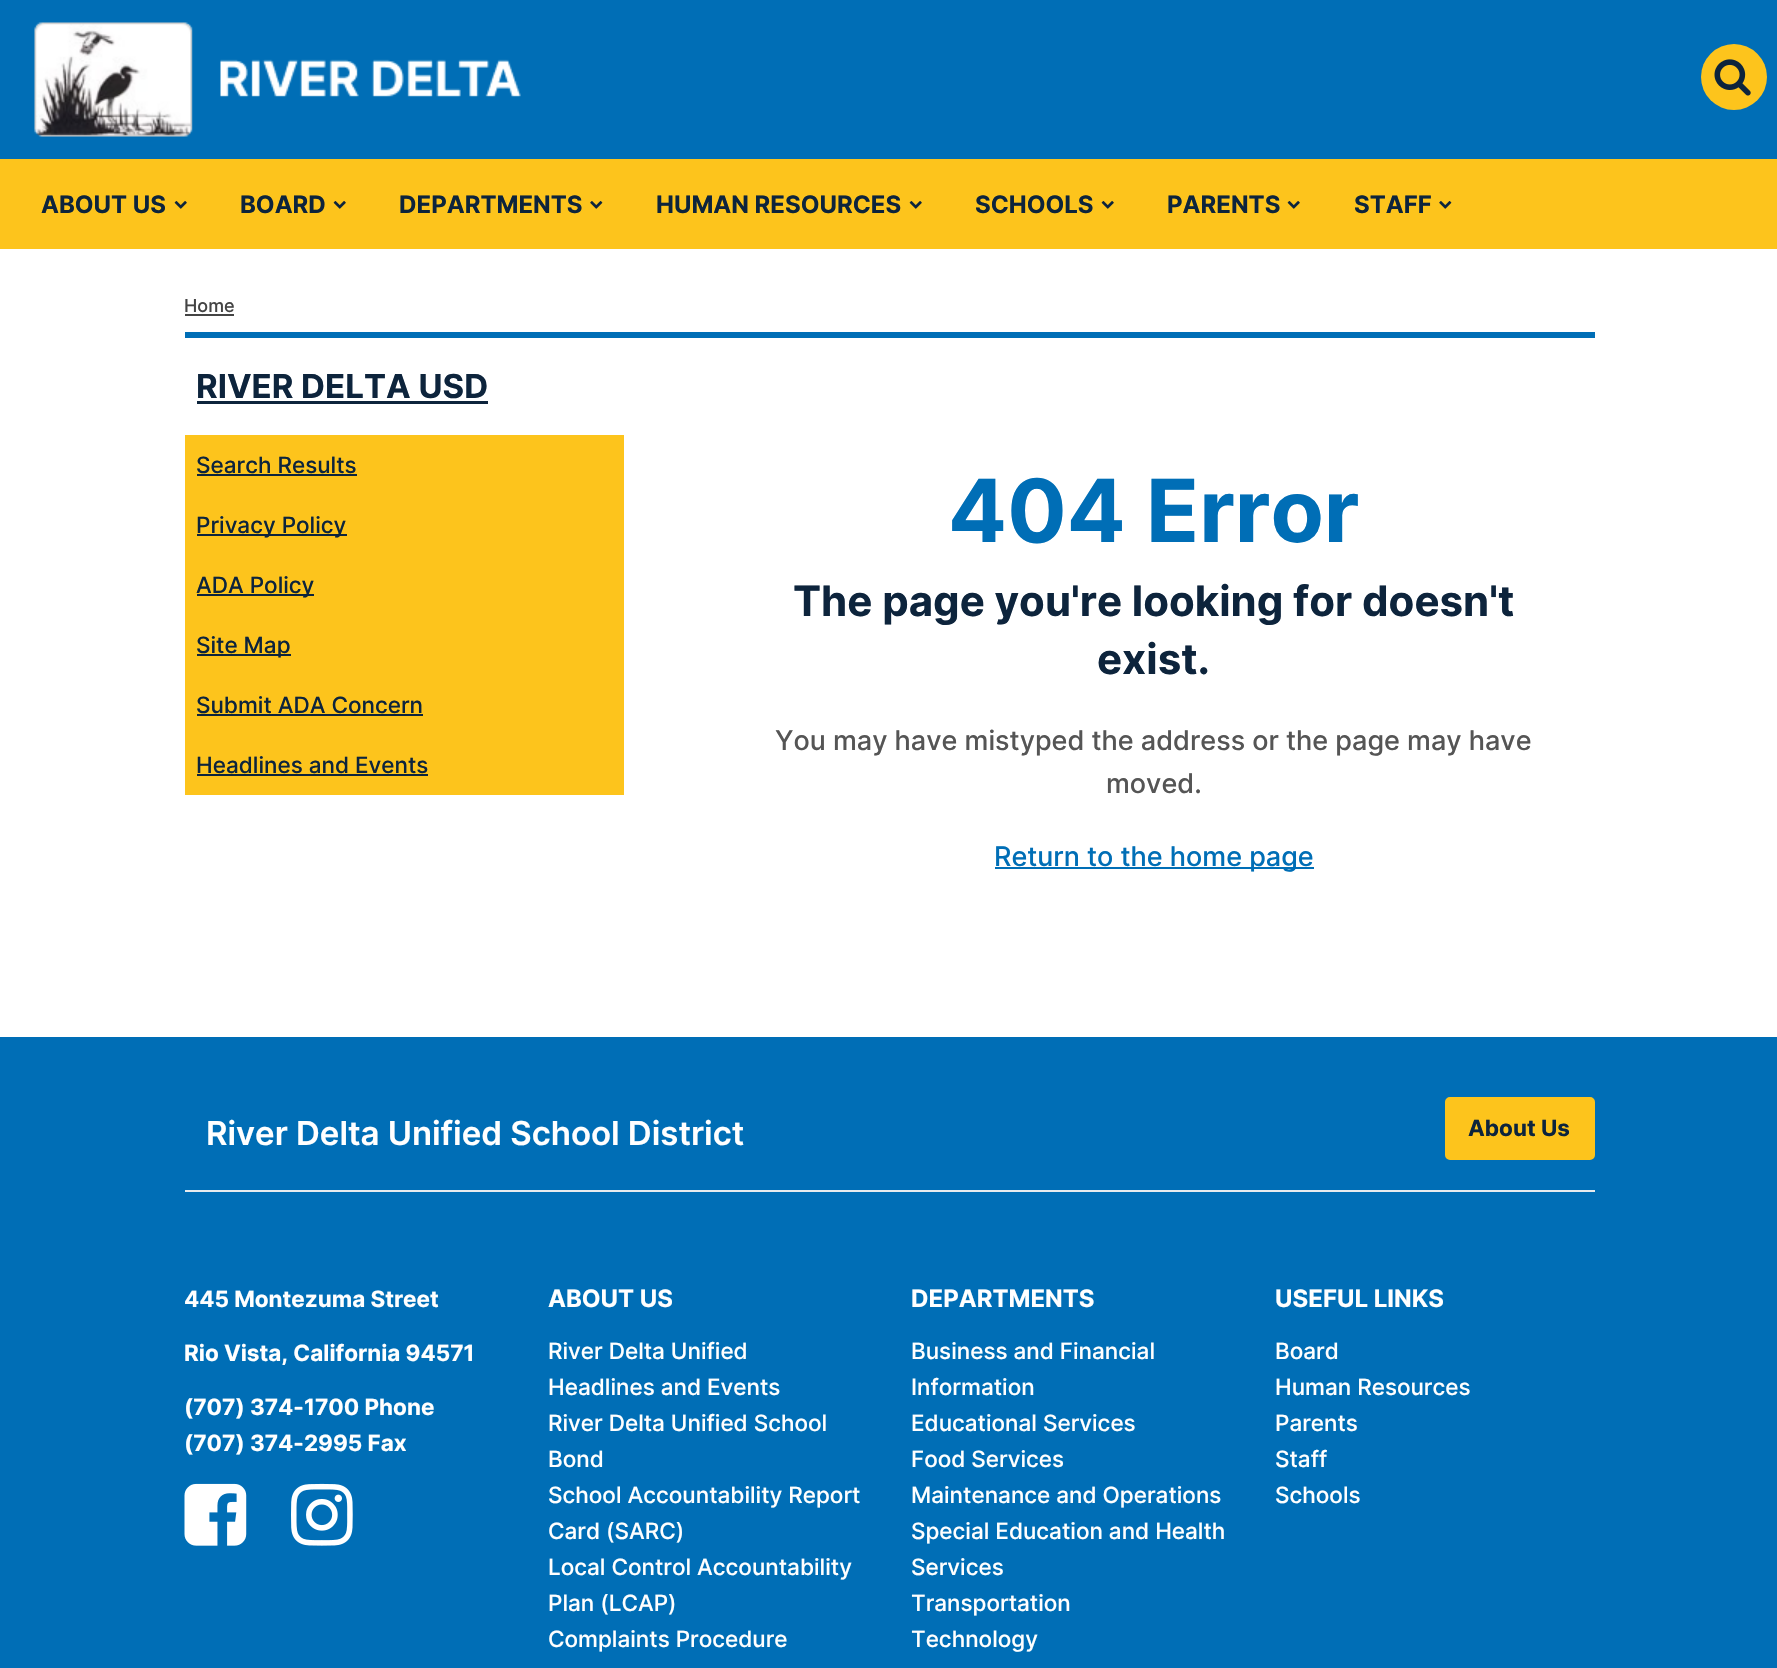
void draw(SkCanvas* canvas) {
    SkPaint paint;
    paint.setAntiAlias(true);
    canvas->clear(0xFFFFFFFF);
    paint.setColor(0xFF006EB6);
    canvas->drawRect(SkRect::MakeXYWH(0, 0, 1777, 159), paint);
    canvas->drawImageRect(SkImages::DeferredFromEncodedData(SkData::MakeFromFileName("img1.png")), SkRect::MakeXYWH(34, 22, 487, 115), SkSamplingOptions());
    paint.setColor(0xFFFDC41C);
    canvas->drawCircle(1734, 77, 33, paint);
    canvas->drawImageRect(SkImages::DeferredFromEncodedData(SkData::MakeFromFileName("img2.png")), SkRect::MakeXYWH(1714, 59, 37, 37), SkSamplingOptions());
    canvas->drawRect(SkRect::MakeXYWH(0, 159, 1777, 90), paint);
    SkFont font1(fontMgr->matchFamilyStyle("Inter", SkFontStyle::Bold()), 24);
    font1.setSubpixel(true);
    paint.setColor(0xFF0D243C);
    canvas->drawString("ABOUT US", 41, 213, font1, paint);
    canvas->drawImageRect(SkImages::DeferredFromEncodedData(SkData::MakeFromFileName("img3.png")), SkRect::MakeXYWH(174, 201, 13, 8), SkSamplingOptions());
    canvas->drawString("BOARD", 240, 213, font1, paint);
    canvas->drawImageRect(SkImages::DeferredFromEncodedData(SkData::MakeFromFileName("img3.png")), SkRect::MakeXYWH(333, 201, 13, 8), SkSamplingOptions());
    canvas->drawString("DEPARTMENTS", 399, 213, font1, paint);
    canvas->drawImageRect(SkImages::DeferredFromEncodedData(SkData::MakeFromFileName("img4.png")), SkRect::MakeXYWH(590, 201, 13, 8), SkSamplingOptions());
    canvas->drawString("HUMAN RESOURCES", 656, 213, font1, paint);
    canvas->drawImageRect(SkImages::DeferredFromEncodedData(SkData::MakeFromFileName("img3.png")), SkRect::MakeXYWH(909, 201, 13, 8), SkSamplingOptions());
    canvas->drawString("SCHOOLS", 975, 213, font1, paint);
    canvas->drawImageRect(SkImages::DeferredFromEncodedData(SkData::MakeFromFileName("img3.png")), SkRect::MakeXYWH(1101, 201, 13, 8), SkSamplingOptions());
    canvas->drawString("PARENTS", 1167, 213, font1, paint);
    canvas->drawImageRect(SkImages::DeferredFromEncodedData(SkData::MakeFromFileName("img3.png")), SkRect::MakeXYWH(1287, 201, 13, 8), SkSamplingOptions());
    canvas->drawString("STAFF", 1354, 213, font1, paint);
    canvas->drawImageRect(SkImages::DeferredFromEncodedData(SkData::MakeFromFileName("img4.png")), SkRect::MakeXYWH(1439, 201, 13, 8), SkSamplingOptions());
    paint.setColor(0xFF006EB6);
    canvas->drawRect(SkRect::MakeXYWH(185, 332, 1410, 6), paint);
    SkFont font2(fontMgr->matchFamilyStyle("Inter", SkFontStyle(500, SkFontStyle::kNormal_Width, SkFontStyle::kUpright_Slant)), 18);
    font2.setSubpixel(true);
    paint.setColor(0xFF444444);
    canvas->drawString("Home", 184, 312, font2, paint);
    canvas->drawRect(SkRect::MakeXYWH(185, 314, 49, 2), paint);
    SkFont font3(fontMgr->matchFamilyStyle("Inter", SkFontStyle::Bold()), 33);
    font3.setSubpixel(true);
    paint.setColor(0xFF0D243C);
    canvas->drawString("RIVER DELTA USD", 196, 398, font3, paint);
    canvas->drawRect(SkRect::MakeXYWH(197, 401, 291, 3), paint);
    paint.setColor(0xFFFDC41C);
    canvas->drawRect(SkRect::MakeXYWH(185, 435, 439, 360), paint);
    SkFont font4(fontMgr->matchFamilyStyle("Inter", SkFontStyle(500, SkFontStyle::kNormal_Width, SkFontStyle::kUpright_Slant)), 22.5f);
    font4.setSubpixel(true);
    paint.setColor(0xFF0D243C);
    canvas->drawString("Search Results", 196, 473, font4, paint);
    canvas->drawRect(SkRect::MakeXYWH(197, 474, 160, 2), paint);
    canvas->drawRect(SkRect::MakeXYWH(197, 534, 150, 2), paint);
    canvas->drawString("Privacy Policy", 196, 533, font4, paint);
    canvas->drawRect(SkRect::MakeXYWH(197, 594, 117, 2), paint);
    canvas->drawString("ADA Policy", 196, 593, font4, paint);
    canvas->drawRect(SkRect::MakeXYWH(197, 654, 94, 2), paint);
    canvas->drawString("Site Map", 196, 653, font4, paint);
    canvas->drawString("Submit ADA Concern", 196, 713, font4, paint);
    canvas->drawRect(SkRect::MakeXYWH(197, 714, 226, 2), paint);
    canvas->drawString("Headlines and Events", 196, 773, font4, paint);
    canvas->drawRect(SkRect::MakeXYWH(197, 774, 231, 2), paint);
    SkFont font5(fontMgr->matchFamilyStyle("Inter", SkFontStyle::Bold()), 87);
    font5.setSubpixel(true);
    paint.setColor(0xFF006EB6);
    canvas->drawString("404 Error", 948, 542, font5, paint);
    SkFont font6(fontMgr->matchFamilyStyle("Inter", SkFontStyle::Bold()), 42);
    font6.setSubpixel(true);
    paint.setColor(0xFF0D243C);
    canvas->drawString("The page you're looking for doesn't", 793, 616, font6, paint);
    canvas->drawString("exist.", 1097, 674, font6, paint);
    SkFont font7(fontMgr->matchFamilyStyle("Inter", SkFontStyle(500, SkFontStyle::kNormal_Width, SkFontStyle::kUpright_Slant)), 27);
    font7.setSubpixel(true);
    paint.setColor(0xFF555555);
    canvas->drawString("You may have mistyped the address or the page may have", 775, 750, font7, paint);
    canvas->drawString("moved.", 1106, 793, font7, paint);
    paint.setColor(0xFF006EB6);
    canvas->drawRect(SkRect::MakeXYWH(995, 867, 319, 2), paint);
    canvas->drawString("Return to the home page", 994, 866, font7, paint);
    canvas->drawRect(SkRect::MakeXYWH(0, 1037, 1777, 631), paint);
    SkFont font8(fontMgr->matchFamilyStyle("Inter", SkFontStyle(600, SkFontStyle::kNormal_Width, SkFontStyle::kUpright_Slant)), 33);
    font8.setSubpixel(true);
    paint.setColor(0xFFFFFFFF);
    canvas->drawString("River Delta Unified School District", 206, 1145, font8, paint);
    paint.setColor(0xFFFDC41C);
    canvas->drawRoundRect(SkRect::MakeXYWH(1446, 1098, 148, 61), 4, 4, paint);
    paint.setStyle(SkPaint::kStroke_Style);
    paint.setStrokeWidth(2);
    canvas->drawRoundRect(SkRect::MakeXYWH(1446, 1098, 148, 61), 4, 4, paint);
    SkFont font9(fontMgr->matchFamilyStyle("Inter", SkFontStyle::Bold()), 22.5f);
    font9.setSubpixel(true);
    paint.setStyle(SkPaint::kFill_Style);
    paint.setColor(0xFF0D243C);
    canvas->drawString("About Us", 1468, 1136, font9, paint);
    paint.setColor(0xFFE7EBEE);
    canvas->drawRect(SkRect::MakeXYWH(185, 1190, 1410, 2), paint);
    paint.setColor(0xFFFFFFFF);
    canvas->drawString("445 Montezuma Street", 184, 1307, font9, paint);
    canvas->drawString("Rio Vista, California 94571", 184, 1361, font9, paint);
    canvas->drawString("(707) 374-1700 Phone", 184, 1415, font9, paint);
    canvas->drawString("(707) 374-2995 Fax", 184, 1451, font9, paint);
    canvas->drawImageRect(SkImages::DeferredFromEncodedData(SkData::MakeFromFileName("img5.png")), SkRect::MakeXYWH(184, 1483, 63, 63), SkSamplingOptions());
    canvas->drawImageRect(SkImages::DeferredFromEncodedData(SkData::MakeFromFileName("img6.png")), SkRect::MakeXYWH(291, 1483, 62, 63), SkSamplingOptions());
    canvas->drawString("ABOUT US", 548, 1307, font1, paint);
    canvas->drawString("River Delta Unified", 548, 1359, font4, paint);
    canvas->drawString("Headlines and Events", 548, 1395, font4, paint);
    canvas->drawString("River Delta Unified School", 548, 1431, font4, paint);
    canvas->drawString("Bond", 548, 1467, font4, paint);
    canvas->drawString("School Accountability Report", 548, 1503, font4, paint);
    canvas->drawString("Card (SARC)", 548, 1539, font4, paint);
    canvas->drawString("Local Control Accountability", 548, 1575, font4, paint);
    canvas->drawString("Plan (LCAP)", 548, 1611, font4, paint);
    canvas->drawString("Complaints Procedure", 548, 1647, font4, paint);
    canvas->drawString("DEPARTMENTS", 911, 1307, font1, paint);
    canvas->drawString("Business and Financial", 911, 1359, font4, paint);
    canvas->drawString("Information", 911, 1395, font4, paint);
    canvas->drawString("Educational Services", 911, 1431, font4, paint);
    canvas->drawString("Food Services", 911, 1467, font4, paint);
    canvas->drawString("Maintenance and Operations", 911, 1503, font4, paint);
    canvas->drawString("Special Education and Health", 911, 1539, font4, paint);
    canvas->drawString("Services", 911, 1575, font4, paint);
    canvas->drawString("Transportation", 911, 1611, font4, paint);
    canvas->drawString("Technology", 911, 1647, font4, paint);
    canvas->drawString("USEFUL LINKS", 1275, 1307, font1, paint);
    canvas->drawString("Board", 1275, 1359, font4, paint);
    canvas->drawString("Human Resources", 1275, 1395, font4, paint);
    canvas->drawString("Parents", 1275, 1431, font4, paint);
    canvas->drawString("Staff", 1275, 1467, font4, paint);
    canvas->drawString("Schools", 1275, 1503, font4, paint);
}
